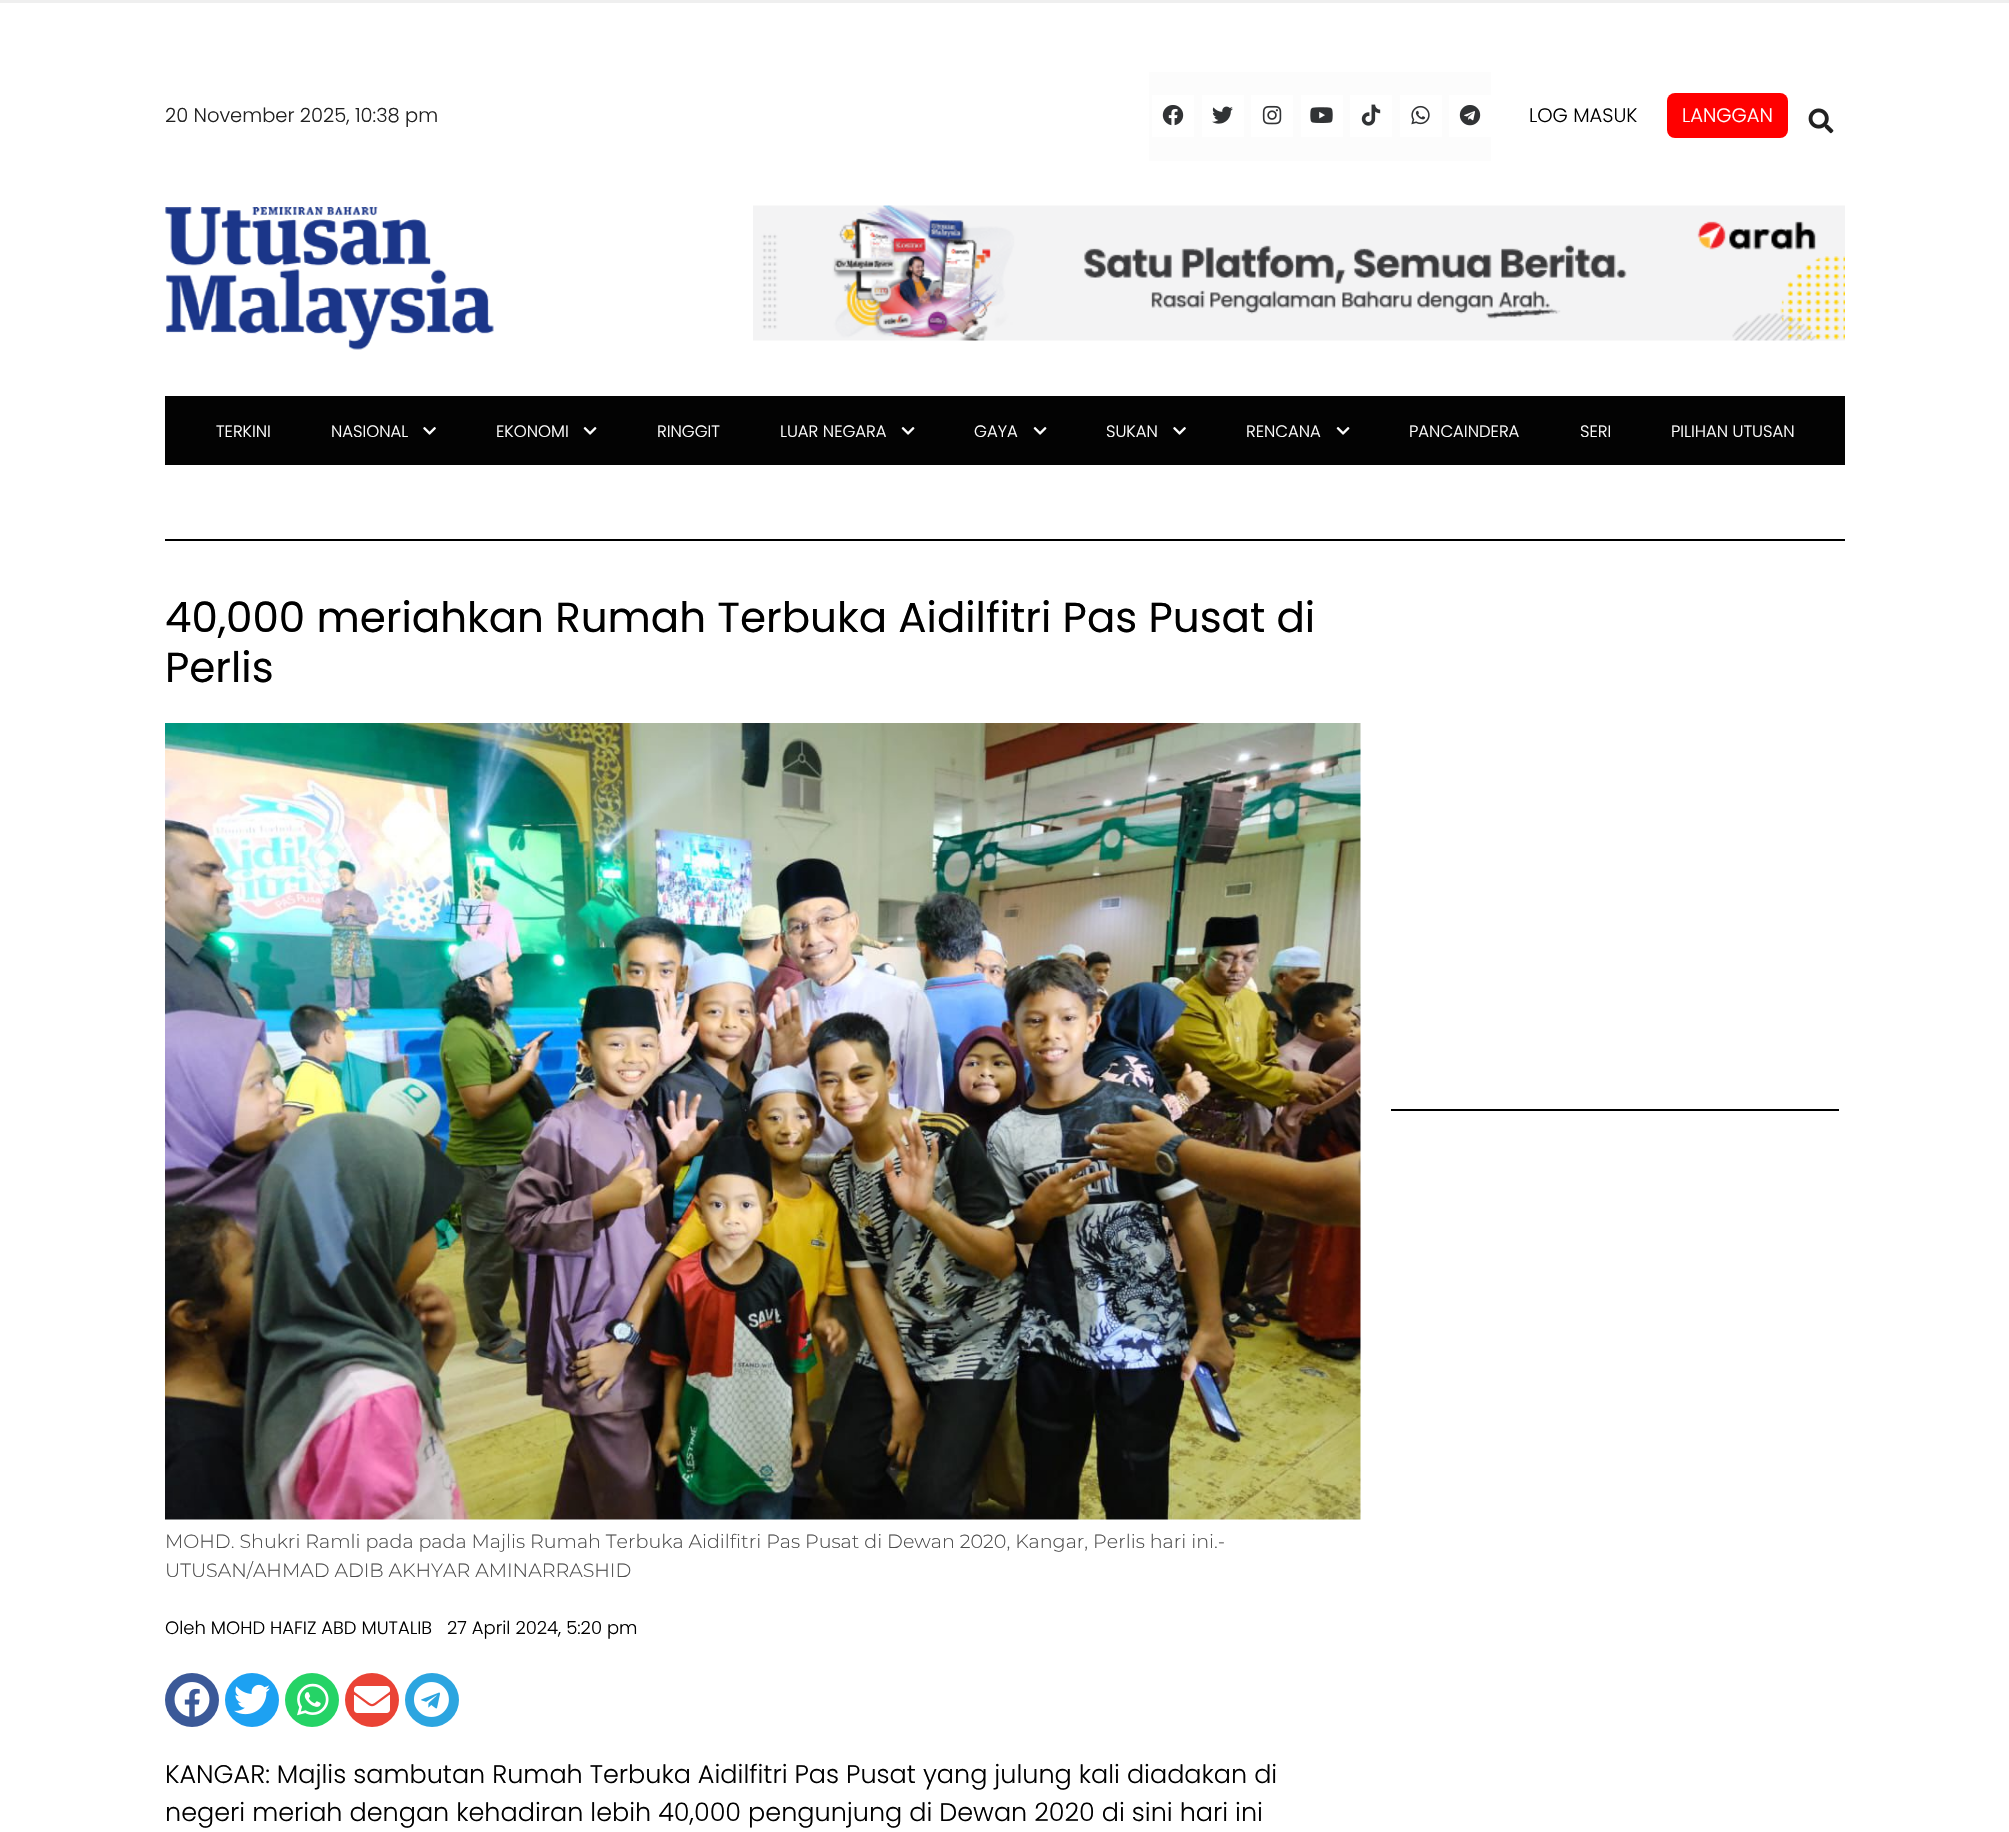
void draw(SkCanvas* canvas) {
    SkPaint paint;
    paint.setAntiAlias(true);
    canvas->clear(0xFFEFEFEF);
    paint.setColor(0xFFFFFFFF);
    canvas->drawRect(SkRect::MakeXYWH(0, 3, 2009, 1829), paint);
    SkFont font1(fontMgr->matchFamilyStyle("Poppins", SkFontStyle(300, SkFontStyle::kNormal_Width, SkFontStyle::kUpright_Slant)), 19.5f);
    font1.setSubpixel(true);
    paint.setColor(0xFF212121);
    canvas->drawString("20 November 2025, 10:38 pm", 165, 122, font1, paint);
    paint.setColor(0xFFFCFCFC);
    canvas->drawRect(SkRect::MakeXYWH(1149, 72, 342, 89), paint);
    paint.setColor(0xFFFFFFFF);
    canvas->drawRect(SkRect::MakeXYWH(1152, 95, 42, 42), paint);
    canvas->drawImageRect(SkImages::DeferredFromEncodedData(SkData::MakeFromFileName("img1.png")), SkRect::MakeXYWH(1162, 105, 22, 21), SkSamplingOptions());
    canvas->drawRect(SkRect::MakeXYWH(1202, 95, 42, 42), paint);
    canvas->drawImageRect(SkImages::DeferredFromEncodedData(SkData::MakeFromFileName("img2.png")), SkRect::MakeXYWH(1212, 106, 21, 18), SkSamplingOptions());
    canvas->drawRect(SkRect::MakeXYWH(1251, 95, 42, 42), paint);
    canvas->drawImageRect(SkImages::DeferredFromEncodedData(SkData::MakeFromFileName("img3.png")), SkRect::MakeXYWH(1262, 105, 20, 20), SkSamplingOptions());
    canvas->drawRect(SkRect::MakeXYWH(1301, 95, 42, 42), paint);
    canvas->drawImageRect(SkImages::DeferredFromEncodedData(SkData::MakeFromFileName("img4.png")), SkRect::MakeXYWH(1310, 107, 23, 16), SkSamplingOptions());
    canvas->drawRect(SkRect::MakeXYWH(1350, 95, 42, 42), paint);
    canvas->drawImageRect(SkImages::DeferredFromEncodedData(SkData::MakeFromFileName("img5.png")), SkRect::MakeXYWH(1361, 104, 20, 22), SkSamplingOptions());
    canvas->drawRect(SkRect::MakeXYWH(1400, 95, 42, 42), paint);
    canvas->drawImageRect(SkImages::DeferredFromEncodedData(SkData::MakeFromFileName("img6.png")), SkRect::MakeXYWH(1411, 105, 19, 20), SkSamplingOptions());
    canvas->drawRect(SkRect::MakeXYWH(1449, 95, 42, 42), paint);
    canvas->drawImageRect(SkImages::DeferredFromEncodedData(SkData::MakeFromFileName("img7.png")), SkRect::MakeXYWH(1459, 105, 22, 21), SkSamplingOptions());
    paint.setColor(0xFF000000);
    canvas->drawString("LOG MASUK", 1529, 122, font1, paint);
    paint.setColor(0xFFFF0000);
    canvas->drawRoundRect(SkRect::MakeXYWH(1667, 93, 121, 45), 8, 8, paint);
    paint.setColor(0xFFFFFFFF);
    canvas->drawString("LANGGAN", 1682, 122, font1, paint);
    canvas->drawImageRect(SkImages::DeferredFromEncodedData(SkData::MakeFromFileName("img8.png")), SkRect::MakeXYWH(1808, 108, 26, 26), SkSamplingOptions());
    canvas->drawImageRect(SkImages::DeferredFromEncodedData(SkData::MakeFromFileName("img9.png")), SkRect::MakeXYWH(165, 207, 329, 143), SkSamplingOptions());
    canvas->drawImageRect(SkImages::DeferredFromEncodedData(SkData::MakeFromFileName("img10.png")), SkRect::MakeXYWH(753, 205, 1092, 136), SkSamplingOptions());
    paint.setColor(0xFF030303);
    canvas->drawRect(SkRect::MakeXYWH(165, 396, 1680, 69), paint);
    SkFont font2(fontMgr->matchFamilyStyle("Poppins", SkFontStyle(300, SkFontStyle::kNormal_Width, SkFontStyle::kUpright_Slant)), 16.5f);
    font2.setSubpixel(true);
    paint.setColor(0xFFFFFFFF);
    canvas->drawString("TERKINI", 216, 437, font2, paint);
    canvas->drawString("NASIONAL", 331, 437, font2, paint);
    canvas->drawImageRect(SkImages::DeferredFromEncodedData(SkData::MakeFromFileName("img11.png")), SkRect::MakeXYWH(423, 427, 13, 8), SkSamplingOptions());
    canvas->drawString("EKONOMI", 496, 437, font2, paint);
    canvas->drawImageRect(SkImages::DeferredFromEncodedData(SkData::MakeFromFileName("img12.png")), SkRect::MakeXYWH(583, 427, 14, 8), SkSamplingOptions());
    canvas->drawString("RINGGIT", 657, 437, font2, paint);
    canvas->drawString("LUAR NEGARA", 780, 437, font2, paint);
    canvas->drawImageRect(SkImages::DeferredFromEncodedData(SkData::MakeFromFileName("img12.png")), SkRect::MakeXYWH(901, 427, 14, 8), SkSamplingOptions());
    canvas->drawString("GAYA", 974, 437, font2, paint);
    canvas->drawImageRect(SkImages::DeferredFromEncodedData(SkData::MakeFromFileName("img12.png")), SkRect::MakeXYWH(1033, 427, 14, 8), SkSamplingOptions());
    canvas->drawString("SUKAN", 1106, 437, font2, paint);
    canvas->drawImageRect(SkImages::DeferredFromEncodedData(SkData::MakeFromFileName("img11.png")), SkRect::MakeXYWH(1173, 427, 13, 8), SkSamplingOptions());
    canvas->drawString("RENCANA", 1246, 437, font2, paint);
    canvas->drawImageRect(SkImages::DeferredFromEncodedData(SkData::MakeFromFileName("img12.png")), SkRect::MakeXYWH(1336, 427, 14, 8), SkSamplingOptions());
    canvas->drawString("PANCAINDERA", 1409, 437, font2, paint);
    canvas->drawString("SERI", 1580, 437, font2, paint);
    canvas->drawString("PILIHAN UTUSAN", 1671, 437, font2, paint);
    paint.setColor(0xFF000000);
    canvas->drawRect(SkRect::MakeXYWH(165, 539, 1680, 2), paint);
    SkFont font3(fontMgr->matchFamilyStyle("Poppins", SkFontStyle::Normal()), 42);
    font3.setSubpixel(true);
    canvas->drawString("40,000 meriahkan Rumah Terbuka Aidilfitri Pas Pusat di", 165, 632, font3, paint);
    canvas->drawString("Perlis", 165, 682, font3, paint);
    canvas->drawImageRect(SkImages::DeferredFromEncodedData(SkData::MakeFromFileName("img13.png")), SkRect::MakeXYWH(165, 723, 1196, 797), SkSamplingOptions());
    SkFont font4(fontMgr->matchFamilyStyle("Montserrat", SkFontStyle(300, SkFontStyle::kNormal_Width, SkFontStyle::kUpright_Slant)), 19.12f);
    font4.setSubpixel(true);
    paint.setColor(0xFF4D4D4D);
    canvas->drawString("MOHD. Shukri Ramli pada pada Majlis Rumah Terbuka Aidilfitri Pas Pusat di Dewan 2020, Kangar, Perlis hari ini.-", 165, 1548, font4, paint);
    canvas->drawString("UTUSAN/AHMAD ADIB AKHYAR AMINARRASHID", 165, 1577, font4, paint);
    SkFont font5(fontMgr->matchFamilyStyle("Poppins", SkFontStyle(300, SkFontStyle::kNormal_Width, SkFontStyle::kUpright_Slant)), 18);
    font5.setSubpixel(true);
    paint.setColor(0xFF000000);
    canvas->drawString("Oleh MOHD HAFIZ ABD MUTALIB", 165, 1634, font5, paint);
    canvas->drawString("27 April 2024, 5:20 pm", 447, 1634, font5, paint);
    paint.setColor(0xFF3B5998);
    canvas->drawCircle(192, 1700, 27, paint);
    canvas->drawImageRect(SkImages::DeferredFromEncodedData(SkData::MakeFromFileName("img14.png")), SkRect::MakeXYWH(174, 1682, 36, 35), SkSamplingOptions());
    paint.setColor(0xFF1DA1F2);
    canvas->drawCircle(252, 1700, 27, paint);
    canvas->drawImageRect(SkImages::DeferredFromEncodedData(SkData::MakeFromFileName("img15.png")), SkRect::MakeXYWH(234, 1684, 36, 31), SkSamplingOptions());
    paint.setColor(0xFF25D366);
    canvas->drawCircle(312, 1700, 27, paint);
    canvas->drawImageRect(SkImages::DeferredFromEncodedData(SkData::MakeFromFileName("img16.png")), SkRect::MakeXYWH(297, 1683, 32, 33), SkSamplingOptions());
    paint.setColor(0xFFEA4335);
    canvas->drawCircle(372, 1700, 27, paint);
    canvas->drawImageRect(SkImages::DeferredFromEncodedData(SkData::MakeFromFileName("img17.png")), SkRect::MakeXYWH(354, 1686, 36, 27), SkSamplingOptions());
    paint.setColor(0xFF2CA5E0);
    canvas->drawCircle(432, 1700, 27, paint);
    canvas->drawImageRect(SkImages::DeferredFromEncodedData(SkData::MakeFromFileName("img18.png")), SkRect::MakeXYWH(414, 1682, 35, 35), SkSamplingOptions());
    SkFont font6(fontMgr->matchFamilyStyle("Poppins", SkFontStyle(300, SkFontStyle::kNormal_Width, SkFontStyle::kUpright_Slant)), 25.5f);
    font6.setSubpixel(true);
    paint.setColor(0xFF000000);
    canvas->drawString("KANGAR: Majlis sambutan Rumah Terbuka Aidilfitri Pas Pusat yang julung kali diadakan di", 165, 1783, font6, paint);
    canvas->drawString("negeri meriah dengan kehadiran lebih 40,000 pengunjung di Dewan 2020 di sini hari ini", 165, 1821, font6, paint);
    canvas->drawRect(SkRect::MakeXYWH(1391, 1109, 448, 2), paint);
}
